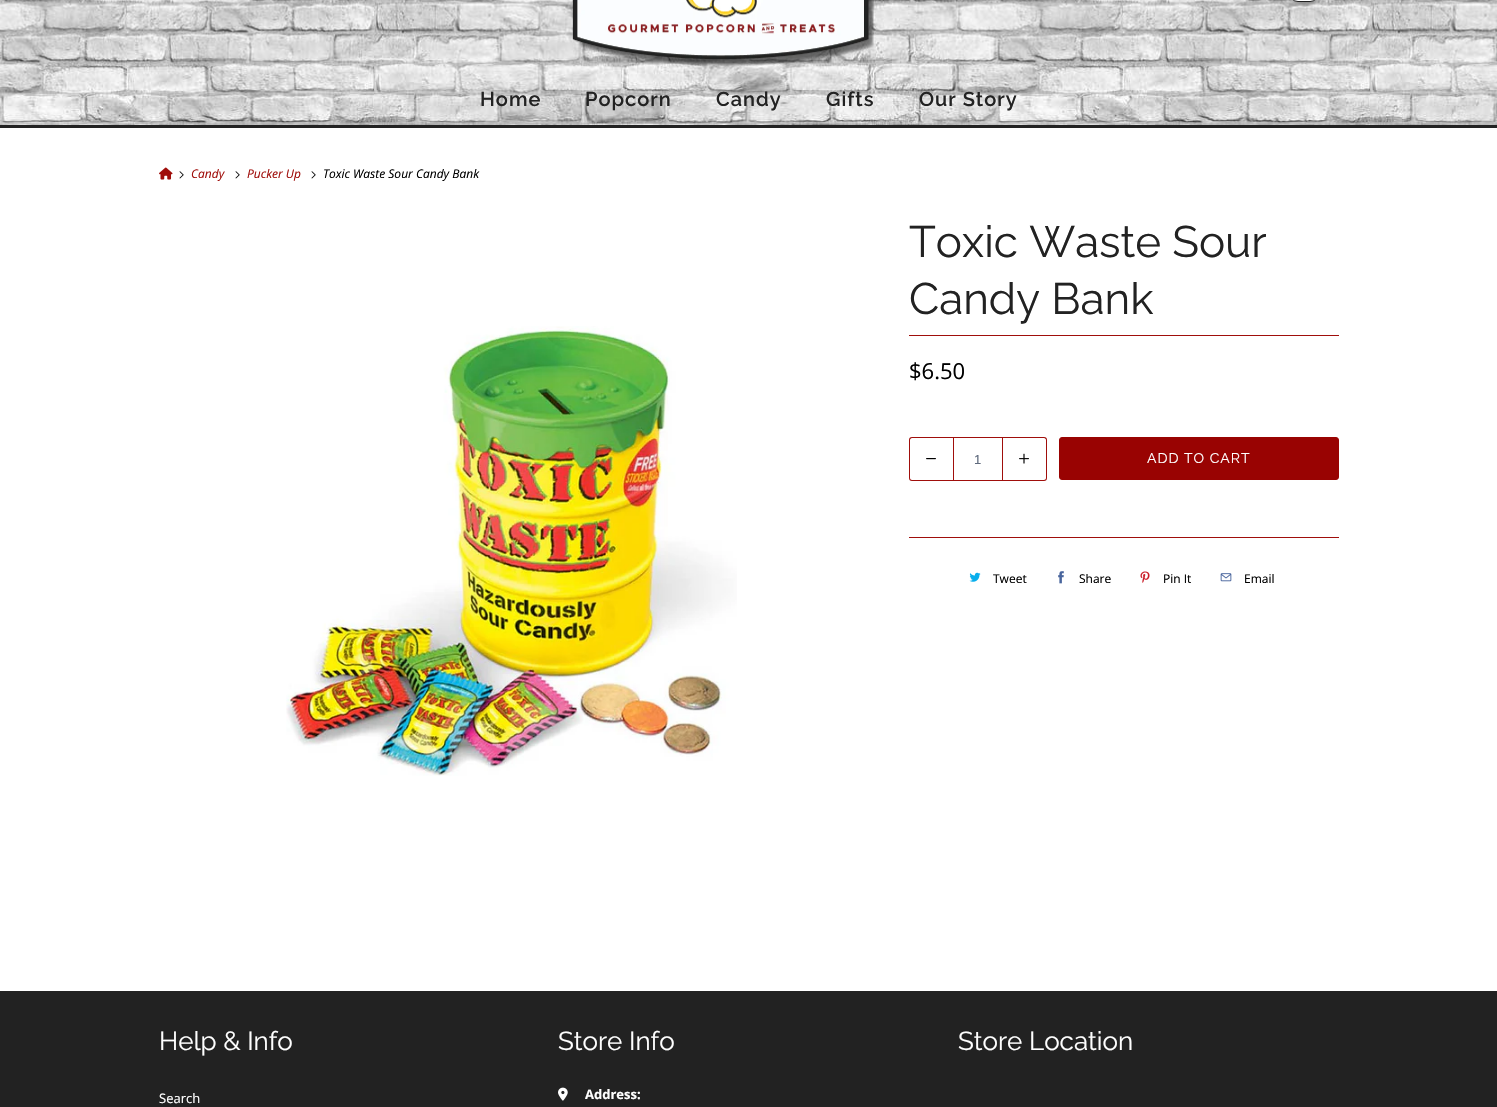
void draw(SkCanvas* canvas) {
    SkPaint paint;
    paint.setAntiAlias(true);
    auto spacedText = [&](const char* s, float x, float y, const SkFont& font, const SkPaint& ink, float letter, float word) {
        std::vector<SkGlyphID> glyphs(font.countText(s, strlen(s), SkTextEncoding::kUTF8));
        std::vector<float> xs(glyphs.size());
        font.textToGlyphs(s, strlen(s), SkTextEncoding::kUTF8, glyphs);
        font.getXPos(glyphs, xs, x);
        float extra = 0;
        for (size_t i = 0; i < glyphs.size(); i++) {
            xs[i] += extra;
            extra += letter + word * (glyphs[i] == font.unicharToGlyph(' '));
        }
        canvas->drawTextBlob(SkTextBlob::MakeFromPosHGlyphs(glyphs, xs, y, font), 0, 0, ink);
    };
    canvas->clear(0xFFFFFFFF);
    canvas->drawImageRect(SkImages::DeferredFromEncodedData(SkData::MakeFromFileName("img1.png")), SkRect::MakeXYWH(0, 0, 1497, 125), SkSamplingOptions());
    paint.setColor(0xFF222222);
    canvas->drawRect(SkRect::MakeXYWH(0, 125, 1497, 3), paint);
    canvas->drawImageRect(SkImages::DeferredFromEncodedData(SkData::MakeFromFileName("img2.png")), SkRect::MakeXYWH(572, 0, 302, 67), SkSamplingOptions());
    paint.setColor(0xFF808080);
    paint.setMaskFilter(SkMaskFilter::MakeBlur(kNormal_SkBlurStyle, 2.5f));
    canvas->drawRoundRect(SkRect::MakeXYWH(1291, -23, 30, 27), 15, 15, paint);
    paint.setMaskFilter(nullptr);
    paint.setColor(0xFFFFFFFF);
    canvas->drawRoundRect(SkRect::MakeXYWH(1289.5f, -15.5f, 29, 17), 14.5f, 14.5f, paint);
    paint.setStyle(SkPaint::kStroke_Style);
    paint.setStrokeWidth(1);
    paint.setColor(0xFF222222);
    canvas->drawRoundRect(SkRect::MakeXYWH(1289.5f, -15.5f, 29, 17), 14.5f, 14.5f, paint);
    SkFont font1(fontMgr->matchFamilyStyle("Raleway", SkFontStyle(600, SkFontStyle::kNormal_Width, SkFontStyle::kUpright_Slant)), 20);
    font1.setSubpixel(true);
    paint.setStyle(SkPaint::kFill_Style);
    spacedText("Home", 480, 106, font1, paint, 1, 0);
    spacedText("Popcorn", 585, 106, font1, paint, 1, 0);
    spacedText("Candy", 716, 106, font1, paint, 1, 0);
    spacedText("Gifts", 826, 106, font1, paint, 1, 0);
    spacedText("Our Story", 919, 106, font1, paint, 1, 0);
    canvas->drawImageRect(SkImages::DeferredFromEncodedData(SkData::MakeFromFileName("img3.png")), SkRect::MakeXYWH(159, 167, 14, 13), SkSamplingOptions());
    canvas->drawImageRect(SkImages::DeferredFromEncodedData(SkData::MakeFromFileName("img4.png")), SkRect::MakeXYWH(179, 171, 5, 8), SkSamplingOptions());
    SkFont font2(fontMgr->matchFamilyStyle("Open Sans", SkFontStyle::Italic()), 12);
    font2.setSubpixel(true);
    paint.setColor(0xFFA00E0B);
    canvas->drawString("Candy", 191, 178, font2, paint);
    canvas->drawImageRect(SkImages::DeferredFromEncodedData(SkData::MakeFromFileName("img4.png")), SkRect::MakeXYWH(235, 171, 5, 8), SkSamplingOptions());
    canvas->drawString("Pucker Up", 247, 178, font2, paint);
    canvas->drawImageRect(SkImages::DeferredFromEncodedData(SkData::MakeFromFileName("img4.png")), SkRect::MakeXYWH(311, 171, 5, 8), SkSamplingOptions());
    paint.setColor(0xFF000000);
    canvas->drawString("Toxic Waste Sour Candy Bank", 323, 178, font2, paint);
    canvas->drawImageRect(SkImages::DeferredFromEncodedData(SkData::MakeFromFileName("img5.png")), SkRect::MakeXYWH(286, 326, 451, 450), SkSamplingOptions());
    paint.setColor(0xFFA00E0B);
    canvas->drawRect(SkRect::MakeXYWH(909, 335, 430, 1), paint);
    SkFont font3(fontMgr->matchFamilyStyle("Raleway", SkFontStyle::Normal()), 44);
    font3.setSubpixel(true);
    paint.setColor(0xFF222222);
    canvas->drawString("Toxic Waste Sour", 909, 257, font3, paint);
    canvas->drawString("Candy Bank", 909, 314, font3, paint);
    SkFont font4(fontMgr->matchFamilyStyle("Open Sans", SkFontStyle::Normal()), 22);
    font4.setSubpixel(true);
    paint.setColor(0xFF000000);
    canvas->drawString("$6.50", 909, 379, font4, paint);
    paint.setColor(0xFFA00E0B);
    canvas->drawPath(SkPathBuilder(SkPathFillType::kEvenOdd).moveTo(912, 437).lineTo(953, 437).lineTo(953, 481).lineTo(912, 481).cubicTo(910, 481, 909, 480, 909, 478).lineTo(909, 440).cubicTo(909, 438, 910, 437, 912, 437).close().moveTo(912, 438).lineTo(953, 438).lineTo(953, 480).lineTo(912, 480).cubicTo(911, 480, 910, 479, 910, 478).lineTo(910, 440).cubicTo(910, 439, 911, 438, 912, 438).close().detach(), paint);
    canvas->drawImageRect(SkImages::DeferredFromEncodedData(SkData::MakeFromFileName("img6.png")), SkRect::MakeXYWH(926, 458, 10, 2), SkSamplingOptions());
    paint.setStyle(SkPaint::kStroke_Style);
    canvas->drawRect(SkRect::MakeXYWH(953.5f, 437.5f, 49, 43), paint);
    SkFont font5(fontMgr->matchFamilyStyle("Liberation Sans", SkFontStyle::Normal()), 13);
    font5.setSubpixel(true);
    paint.setStyle(SkPaint::kFill_Style);
    paint.setColor(0xFF5F6A7D);
    canvas->drawString("1", 974, 464, font5, paint);
    paint.setColor(0xFFA00E0B);
    canvas->drawPath(SkPathBuilder(SkPathFillType::kEvenOdd).moveTo(1003, 437).lineTo(1044, 437).cubicTo(1046, 437, 1047, 438, 1047, 440).lineTo(1047, 478).cubicTo(1047, 480, 1046, 481, 1044, 481).lineTo(1003, 481).close().moveTo(1003, 438).lineTo(1044, 438).cubicTo(1045, 438, 1046, 439, 1046, 440).lineTo(1046, 478).cubicTo(1046, 479, 1045, 480, 1044, 480).lineTo(1003, 480).close().detach(), paint);
    canvas->drawImageRect(SkImages::DeferredFromEncodedData(SkData::MakeFromFileName("img7.png")), SkRect::MakeXYWH(1019, 453, 10, 11), SkSamplingOptions());
    paint.setColor(0xFF990302);
    canvas->drawRoundRect(SkRect::MakeXYWH(1059.5f, 437.5f, 279, 42), 2.5f, 2.5f, paint);
    paint.setStyle(SkPaint::kStroke_Style);
    canvas->drawRoundRect(SkRect::MakeXYWH(1059.5f, 437.5f, 279, 42), 2.5f, 2.5f, paint);
    SkFont font6(fontMgr->matchFamilyStyle("Raleway", SkFontStyle::Normal()), 14);
    font6.setSubpixel(true);
    paint.setStyle(SkPaint::kFill_Style);
    paint.setColor(0xFFFFFFFF);
    spacedText("ADD TO CART", 1147, 463, font6, paint, 1, 0);
    paint.setColor(0xFFA00E0B);
    canvas->drawRect(SkRect::MakeXYWH(909, 537, 430, 1), paint);
    canvas->drawImageRect(SkImages::DeferredFromEncodedData(SkData::MakeFromFileName("img8.png")), SkRect::MakeXYWH(969, 572, 12, 10), SkSamplingOptions());
    SkFont font7(fontMgr->matchFamilyStyle("Open Sans", SkFontStyle::Normal()), 12);
    font7.setSubpixel(true);
    paint.setColor(0xFF000000);
    canvas->drawString("Tweet", 993, 583, font7, paint);
    canvas->drawImageRect(SkImages::DeferredFromEncodedData(SkData::MakeFromFileName("img9.png")), SkRect::MakeXYWH(1058, 571, 6, 13), SkSamplingOptions());
    canvas->drawString("Share", 1079, 583, font7, paint);
    canvas->drawImageRect(SkImages::DeferredFromEncodedData(SkData::MakeFromFileName("img10.png")), SkRect::MakeXYWH(1140, 571, 10, 12), SkSamplingOptions());
    canvas->drawString("Pin It", 1163, 583, font7, paint);
    canvas->drawImageRect(SkImages::DeferredFromEncodedData(SkData::MakeFromFileName("img11.png")), SkRect::MakeXYWH(1220, 573, 12, 9), SkSamplingOptions());
    canvas->drawString("Email", 1244, 583, font7, paint);
    paint.setColor(0xFF222222);
    canvas->drawRect(SkRect::MakeXYWH(0, 991, 1497, 116), paint);
    SkFont font8(fontMgr->matchFamilyStyle("Raleway", SkFontStyle::Normal()), 26);
    font8.setSubpixel(true);
    paint.setColor(0xFFFFFFFF);
    canvas->drawString("Help & Info", 159, 1050, font8, paint);
    SkFont font9(fontMgr->matchFamilyStyle("Open Sans", SkFontStyle::Normal()), 13);
    font9.setSubpixel(true);
    canvas->drawString("Search", 159, 1103, font9, paint);
    canvas->drawString("Store Info", 558, 1050, font8, paint);
    canvas->drawImageRect(SkImages::DeferredFromEncodedData(SkData::MakeFromFileName("img12.png")), SkRect::MakeXYWH(558, 1087, 10, 14), SkSamplingOptions());
    SkFont font10(fontMgr->matchFamilyStyle("Open Sans", SkFontStyle::Bold()), 13);
    font10.setSubpixel(true);
    canvas->drawString("Address:", 585, 1099, font10, paint);
    canvas->drawString("Store Location", 958, 1050, font8, paint);
}
